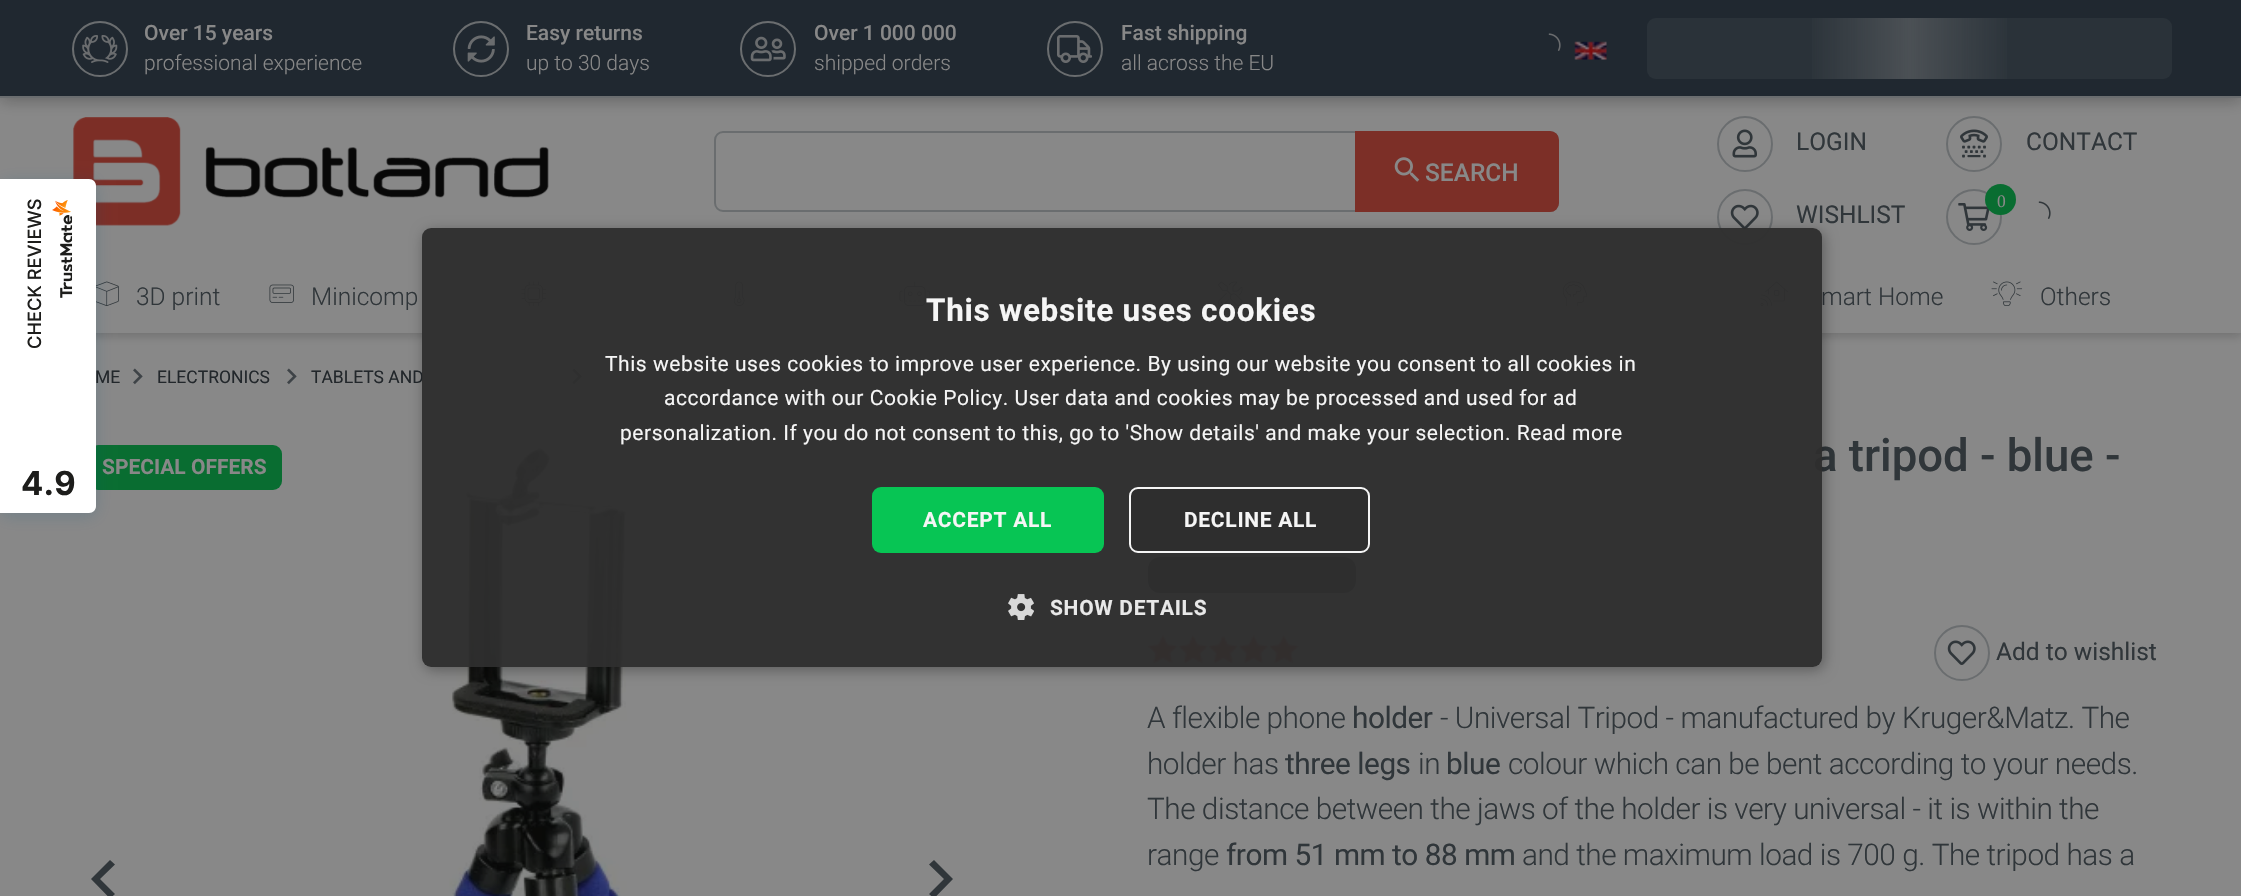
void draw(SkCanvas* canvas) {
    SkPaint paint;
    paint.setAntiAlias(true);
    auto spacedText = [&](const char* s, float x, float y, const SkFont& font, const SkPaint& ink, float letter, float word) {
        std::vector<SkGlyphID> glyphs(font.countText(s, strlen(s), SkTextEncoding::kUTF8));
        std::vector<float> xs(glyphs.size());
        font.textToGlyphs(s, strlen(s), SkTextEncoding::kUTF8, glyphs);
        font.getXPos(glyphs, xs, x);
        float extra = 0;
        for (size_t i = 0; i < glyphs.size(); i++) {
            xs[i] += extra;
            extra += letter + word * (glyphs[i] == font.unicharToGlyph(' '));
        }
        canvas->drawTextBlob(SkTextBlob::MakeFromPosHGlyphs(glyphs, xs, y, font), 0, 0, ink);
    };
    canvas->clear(0xFF888888);
    paint.setColor(0x33090909);
    paint.setMaskFilter(SkMaskFilter::MakeBlur(kNormal_SkBlurStyle, 5));
    canvas->drawRect(SkRect::MakeXYWH(0, 4, 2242, 332), paint);
    paint.setMaskFilter(nullptr);
    paint.setColor(0xFF888888);
    canvas->drawRect(SkRect::MakeXYWH(0, 98, 2241, 235), paint);
    paint.setColor(0x4D090909);
    paint.setMaskFilter(SkMaskFilter::MakeBlur(kNormal_SkBlurStyle, 8));
    canvas->drawRect(SkRect::MakeXYWH(0, 2, 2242, 98), paint);
    paint.setMaskFilter(nullptr);
    canvas->drawImageRect(SkImages::DeferredFromEncodedData(SkData::MakeFromFileName("img8.png")), SkRect::MakeXYWH(73, 117, 476, 109), SkSamplingOptions());
    canvas->drawImageRect(SkImages::DeferredFromEncodedData(SkData::MakeFromFileName("img15.png")), SkRect::MakeXYWH(96, 281, 23, 25), SkSamplingOptions());
    paint.setColor(0xFF096D31);
    canvas->drawRoundRect(SkRect::MakeXYWH(89, 445, 193, 45), 9, 9, paint);
    paint.setColor(0x330B5680);
    paint.setMaskFilter(SkMaskFilter::MakeBlur(kNormal_SkBlurStyle, 9));
    canvas->drawRoundRect(SkRect::MakeXYWH(0, 182, 96, 334), 7, 7, paint);
    paint.setMaskFilter(nullptr);
    paint.setColor(0xFFFFFFFF);
    canvas->drawPath(SkPathBuilder().moveTo(0, 179).lineTo(89, 179).cubicTo(93, 179, 96, 182, 96, 186).lineTo(96, 506).cubicTo(96, 510, 93, 513, 89, 513).lineTo(0, 513).close().detach(), paint);
    SkFont font1(fontMgr->matchFamilyStyle("Inter", SkFontStyle(500, SkFontStyle::kNormal_Width, SkFontStyle::kUpright_Slant)), 18.25f);
    font1.setSubpixel(true);
    paint.setColor(0xFF1D1D1B);
    canvas->save();
    canvas->rotate(-90, 41, 349);
    canvas->drawString("CHECK REVIEWS", 41, 349, font1, paint);
    canvas->restore();
    canvas->drawImageRect(SkImages::DeferredFromEncodedData(SkData::MakeFromFileName("img1.png")), SkRect::MakeXYWH(52, 200, 21, 98), SkSamplingOptions());
    SkFont font2(fontMgr->matchFamilyStyle("Inter", SkFontStyle::Bold()), 33);
    font2.setSubpixel(true);
    canvas->drawString("4.9", 21, 495, font2, paint);
    paint.setColor(0xFF202830);
    canvas->drawRect(SkRect::MakeXYWH(0, 0, 2241, 96), paint);
    paint.setColor(0xFF6A6D6F);
    canvas->drawRect(SkRect::MakeXYWH(0, 96, 2241, 2), paint);
    paint.setStyle(SkPaint::kStroke_Style);
    paint.setStrokeWidth(2);
    canvas->drawCircle(100, 49, 27, paint);
    canvas->drawImageRect(SkImages::DeferredFromEncodedData(SkData::MakeFromFileName("img2.png")), SkRect::MakeXYWH(82, 35, 36, 28), SkSamplingOptions());
    SkFont font3(fontMgr->matchFamilyStyle("Roboto", SkFontStyle(500, SkFontStyle::kNormal_Width, SkFontStyle::kUpright_Slant)), 21);
    font3.setSubpixel(true);
    paint.setStyle(SkPaint::kFill_Style);
    paint.setColor(0xFF888888);
    canvas->drawString("Over 15 years", 144, 40, font3, paint);
    SkFont font4(fontMgr->matchFamilyStyle("Roboto", SkFontStyle(300, SkFontStyle::kNormal_Width, SkFontStyle::kUpright_Slant)), 21);
    font4.setSubpixel(true);
    canvas->drawString("professional experience", 144, 70, font4, paint);
    paint.setStyle(SkPaint::kStroke_Style);
    paint.setColor(0xFF6A6D6F);
    canvas->drawCircle(481, 49, 27, paint);
    canvas->drawImageRect(SkImages::DeferredFromEncodedData(SkData::MakeFromFileName("img3.png")), SkRect::MakeXYWH(467, 35, 28, 28), SkSamplingOptions());
    paint.setStyle(SkPaint::kFill_Style);
    paint.setColor(0xFF888888);
    canvas->drawString("Easy returns", 526, 40, font3, paint);
    canvas->drawString("up to 30 days", 526, 70, font4, paint);
    paint.setStyle(SkPaint::kStroke_Style);
    paint.setColor(0xFF6A6D6F);
    canvas->drawCircle(768, 49, 27, paint);
    canvas->drawImageRect(SkImages::DeferredFromEncodedData(SkData::MakeFromFileName("img4.png")), SkRect::MakeXYWH(750, 36, 36, 26), SkSamplingOptions());
    paint.setStyle(SkPaint::kFill_Style);
    paint.setColor(0xFF888888);
    canvas->drawString("Over 1 000 000", 814, 40, font3, paint);
    canvas->drawString("shipped orders", 814, 70, font4, paint);
    paint.setStyle(SkPaint::kStroke_Style);
    paint.setColor(0xFF6A6D6F);
    canvas->drawCircle(1075, 49, 27, paint);
    canvas->drawImageRect(SkImages::DeferredFromEncodedData(SkData::MakeFromFileName("img5.png")), SkRect::MakeXYWH(1057, 35, 35, 28), SkSamplingOptions());
    paint.setStyle(SkPaint::kFill_Style);
    paint.setColor(0xFF888888);
    canvas->drawString("Fast shipping", 1121, 40, font3, paint);
    canvas->drawString("all across the EU", 1121, 70, font4, paint);
    canvas->drawImageRect(SkImages::DeferredFromEncodedData(SkData::MakeFromFileName("img6.png")), SkRect::MakeXYWH(1548, 33, 13, 18), SkSamplingOptions());
    canvas->drawImageRect(SkImages::DeferredFromEncodedData(SkData::MakeFromFileName("img7.png")), SkRect::MakeXYWH(1574, 41, 33, 19), SkSamplingOptions());
    paint.setColor(0xFF2A3239);
    canvas->drawRoundRect(SkRect::MakeXYWH(1647, 18, 525, 61), 9, 9, paint);
    {
        const SkColor colors[] = {0x00888888, 0x59888888, 0x00888888};
        const float stops[] = {0.46f, 0.5f, 0.54f};
        const SkPoint ends[] = {{597, 48}, {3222, 48}};
        paint.setShader(SkGradientShader::MakeLinear(ends, colors, stops, 3, SkTileMode::kClamp));
        paint.setAlpha(255);
    }
    canvas->drawRect(SkRect::MakeXYWH(1812, 18, 195, 61), paint);
    paint.setStyle(SkPaint::kStroke_Style);
    paint.setShader(nullptr);
    paint.setColor(0xFF6A6D6F);
    canvas->drawRoundRect(SkRect::MakeXYWH(715, 132, 843, 79), 8, 8, paint);
    paint.setStyle(SkPaint::kFill_Style);
    paint.setColor(0xFF7C2F27);
    canvas->drawPath(SkPathBuilder().moveTo(1356, 132).lineTo(1550, 132).cubicTo(1554.5f, 132, 1558, 135.5f, 1558, 140).lineTo(1558, 203).cubicTo(1558, 207.5f, 1554.5f, 211, 1550, 211).lineTo(1356, 211).close().detach(), paint);
    paint.setStyle(SkPaint::kStroke_Style);
    canvas->drawPath(SkPathBuilder().moveTo(1356, 132).lineTo(1550, 132).cubicTo(1554.5f, 132, 1558, 135.5f, 1558, 140).lineTo(1558, 203).cubicTo(1558, 207.5f, 1554.5f, 211, 1550, 211).lineTo(1356, 211).close().detach(), paint);
    canvas->drawImageRect(SkImages::DeferredFromEncodedData(SkData::MakeFromFileName("img9.png")), SkRect::MakeXYWH(1394, 157, 26, 25), SkSamplingOptions());
    SkFont font5(fontMgr->matchFamilyStyle("Roboto", SkFontStyle(500, SkFontStyle::kNormal_Width, SkFontStyle::kUpright_Slant)), 24.5f);
    font5.setSubpixel(true);
    paint.setStyle(SkPaint::kFill_Style);
    paint.setColor(0xFF888888);
    canvas->drawString("SEARCH", 1425, 181, font5, paint);
    paint.setStyle(SkPaint::kStroke_Style);
    paint.setColor(0xFF6A6D6F);
    canvas->drawCircle(1745, 144, 27, paint);
    canvas->drawImageRect(SkImages::DeferredFromEncodedData(SkData::MakeFromFileName("img10.png")), SkRect::MakeXYWH(1732, 129, 25, 29), SkSamplingOptions());
    SkFont font6(fontMgr->matchFamilyStyle("Roboto", SkFontStyle::Normal()), 24.5f);
    font6.setSubpixel(true);
    paint.setStyle(SkPaint::kFill_Style);
    paint.setColor(0xFF30363A);
    canvas->drawString("LOGIN", 1796, 150, font6, paint);
    paint.setStyle(SkPaint::kStroke_Style);
    paint.setColor(0xFF6A6D6F);
    canvas->drawCircle(1974, 144, 27, paint);
    canvas->drawImageRect(SkImages::DeferredFromEncodedData(SkData::MakeFromFileName("img11.png")), SkRect::MakeXYWH(1960, 129, 28, 29), SkSamplingOptions());
    paint.setStyle(SkPaint::kFill_Style);
    paint.setColor(0xFF30363A);
    canvas->drawString("CONTACT", 2026, 150, font6, paint);
    paint.setStyle(SkPaint::kStroke_Style);
    paint.setColor(0xFF6A6D6F);
    canvas->drawCircle(1974, 217, 27, paint);
    canvas->drawImageRect(SkImages::DeferredFromEncodedData(SkData::MakeFromFileName("img12.png")), SkRect::MakeXYWH(1958, 203, 32, 28), SkSamplingOptions());
    paint.setStyle(SkPaint::kFill_Style);
    paint.setColor(0xFF096D31);
    canvas->drawCircle(2000.5f, 199.5f, 15.5f, paint);
    SkFont font7(fontMgr->matchFamilyStyle("Liberation Serif", SkFontStyle::Normal()), 17.5f);
    font7.setSubpixel(true);
    paint.setColor(0xFF888888);
    canvas->drawString("0", 1997, 207, font7, paint);
    canvas->drawImageRect(SkImages::DeferredFromEncodedData(SkData::MakeFromFileName("img13.png")), SkRect::MakeXYWH(2038, 201, 13, 18), SkSamplingOptions());
    paint.setStyle(SkPaint::kStroke_Style);
    paint.setColor(0xFF6A6D6F);
    canvas->drawCircle(1745, 217, 27, paint);
    canvas->drawImageRect(SkImages::DeferredFromEncodedData(SkData::MakeFromFileName("img14.png")), SkRect::MakeXYWH(1730, 204, 29, 26), SkSamplingOptions());
    paint.setStyle(SkPaint::kFill_Style);
    paint.setColor(0xFF30363A);
    canvas->drawString("WISHLIST", 1796, 223, font6, paint);
    SkFont font8(fontMgr->matchFamilyStyle("Roboto", SkFontStyle(300, SkFontStyle::kNormal_Width, SkFontStyle::kUpright_Slant)), 24.5f);
    font8.setSubpixel(true);
    canvas->drawString("3D print", 136, 305, font8, paint);
    canvas->drawImageRect(SkImages::DeferredFromEncodedData(SkData::MakeFromFileName("img16.png")), SkRect::MakeXYWH(269, 284, 25, 19), SkSamplingOptions());
    canvas->drawString("Minicomp", 311, 305, font8, paint);
    canvas->drawImageRect(SkImages::DeferredFromEncodedData(SkData::MakeFromFileName("img17.png")), SkRect::MakeXYWH(521, 281, 25, 25), SkSamplingOptions());
    canvas->drawImageRect(SkImages::DeferredFromEncodedData(SkData::MakeFromFileName("img18.png")), SkRect::MakeXYWH(733, 281, 12, 25), SkSamplingOptions());
    canvas->drawImageRect(SkImages::DeferredFromEncodedData(SkData::MakeFromFileName("img19.png")), SkRect::MakeXYWH(899, 281, 32, 25), SkSamplingOptions());
    canvas->drawImageRect(SkImages::DeferredFromEncodedData(SkData::MakeFromFileName("img20.png")), SkRect::MakeXYWH(1218, 281, 25, 25), SkSamplingOptions());
    canvas->drawImageRect(SkImages::DeferredFromEncodedData(SkData::MakeFromFileName("img21.png")), SkRect::MakeXYWH(1562, 281, 26, 25), SkSamplingOptions());
    canvas->drawImageRect(SkImages::DeferredFromEncodedData(SkData::MakeFromFileName("img22.png")), SkRect::MakeXYWH(1760, 281, 28, 25), SkSamplingOptions());
    canvas->drawString("mart Home", 1821, 305, font8, paint);
    canvas->drawImageRect(SkImages::DeferredFromEncodedData(SkData::MakeFromFileName("img23.png")), SkRect::MakeXYWH(1991, 281, 32, 25), SkSamplingOptions());
    canvas->drawString("Others", 2040, 305, font8, paint);
    SkFont font9(fontMgr->matchFamilyStyle("Roboto", SkFontStyle::Normal()), 17.5f);
    font9.setSubpixel(true);
    paint.setColor(0xFF22272B);
    canvas->drawString("ME", 95, 383, font9, paint);
    canvas->drawImageRect(SkImages::DeferredFromEncodedData(SkData::MakeFromFileName("img24.png")), SkRect::MakeXYWH(133, 368, 10, 17), SkSamplingOptions());
    canvas->drawString("ELECTRONICS", 157, 383, font9, paint);
    canvas->drawImageRect(SkImages::DeferredFromEncodedData(SkData::MakeFromFileName("img24.png")), SkRect::MakeXYWH(287, 368, 10, 17), SkSamplingOptions());
    canvas->drawString("TABLETS AND", 311, 383, font9, paint);
    canvas->drawImageRect(SkImages::DeferredFromEncodedData(SkData::MakeFromFileName("img25.png")), SkRect::MakeXYWH(572, 368, 10, 17), SkSamplingOptions());
    canvas->drawImageRect(SkImages::DeferredFromEncodedData(SkData::MakeFromFileName("img26.png")), SkRect::MakeXYWH(449, 447, 178, 449), SkSamplingOptions());
    paint.setColor(0xFF30363A);
    canvas->drawPath(SkPathBuilder().moveTo(110, 860).lineTo(91, 879).lineTo(110, 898.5f).lineTo(115, 894).lineTo(100, 879).lineTo(115, 864.5f).close().detach(), paint);
    canvas->drawPath(SkPathBuilder().moveTo(929, 864.5f).lineTo(944, 879).lineTo(929, 894).lineTo(934, 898.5f).lineTo(953, 879).lineTo(934, 860).close().detach(), paint);
    SkFont font10(fontMgr->matchFamilyStyle("Roboto", SkFontStyle::Bold()), 21);
    font10.setSubpixel(true);
    paint.setColor(0xFF888888);
    canvas->drawString("SPECIAL OFFERS", 102, 474, font10, paint);
    SkFont font11(fontMgr->matchFamilyStyle("Roboto", SkFontStyle(500, SkFontStyle::kNormal_Width, SkFontStyle::kUpright_Slant)), 45.5f);
    font11.setSubpixel(true);
    paint.setColor(0xFF30363A);
    canvas->drawString("a tripod - blue -", 1813, 471, font11, paint);
    canvas->drawRoundRect(SkRect::MakeXYWH(1148, 557, 208, 36), 12, 12, paint);
    canvas->drawImageRect(SkImages::DeferredFromEncodedData(SkData::MakeFromFileName("img27.png")), SkRect::MakeXYWH(1148, 635, 151, 29), SkSamplingOptions());
    canvas->drawImageRect(SkImages::DeferredFromEncodedData(SkData::MakeFromFileName("img28.png")), SkRect::MakeXYWH(1148, 635, 151, 29), SkSamplingOptions());
    paint.setStyle(SkPaint::kStroke_Style);
    paint.setColor(0xFF6A6D6F);
    canvas->drawCircle(1962, 653, 27, paint);
    canvas->drawImageRect(SkImages::DeferredFromEncodedData(SkData::MakeFromFileName("img29.png")), SkRect::MakeXYWH(1947, 640, 29, 25), SkSamplingOptions());
    paint.setStyle(SkPaint::kFill_Style);
    paint.setColor(0xFF30363A);
    canvas->drawString("Add to wishlist", 1996, 660, font6, paint);
    SkFont font12(fontMgr->matchFamilyStyle("Roboto", SkFontStyle(300, SkFontStyle::kNormal_Width, SkFontStyle::kUpright_Slant)), 29.75f);
    font12.setSubpixel(true);
    spacedText("A flexible phone", 1147, 728, font12, paint, -0.47f, 0);
    SkFont font13(fontMgr->matchFamilyStyle("Roboto", SkFontStyle::Normal()), 29.75f);
    font13.setSubpixel(true);
    spacedText("holder", 1352, 728, font13, paint, -0.47f, 0);
    spacedText("- Universal Tripod - manufactured by Kruger&Matz. The", 1440, 728, font12, paint, -0.47f, 0);
    spacedText("holder has", 1147, 774, font12, paint, -0.47f, 0);
    spacedText("three legs", 1285, 774, font13, paint, -0.47f, 0);
    spacedText("in", 1418, 774, font12, paint, -0.47f, 0);
    spacedText("blue", 1446, 774, font13, paint, -0.47f, 0);
    spacedText("colour which can be bent according to your needs.", 1508, 774, font12, paint, -0.47f, 0);
    spacedText("The distance between the jaws of the holder is very universal - it is within the", 1147, 819, font12, paint, -0.47f, 0);
    spacedText("range", 1147, 865, font12, paint, -0.47f, 0);
    spacedText("from 51 mm to 88 mm", 1226, 865, font13, paint, -0.47f, 0);
    spacedText("and the maximum load is 700 g. The tripod has a", 1522, 865, font12, paint, -0.47f, 0);
    canvas->save();
    canvas->clipPath(SkPathBuilder(SkPathFillType::kEvenOdd).moveTo(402, 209).lineTo(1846, 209).lineTo(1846, 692).lineTo(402, 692).close().moveTo(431, 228).lineTo(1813, 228).cubicTo(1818, 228, 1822, 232, 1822, 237).lineTo(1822, 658).cubicTo(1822, 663, 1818, 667, 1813, 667).lineTo(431, 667).cubicTo(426, 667, 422, 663, 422, 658).lineTo(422, 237).cubicTo(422, 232, 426, 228, 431, 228).close().detach(), true);
    paint.setColor(0x54000000);
    paint.setMaskFilter(SkMaskFilter::MakeBlur(kNormal_SkBlurStyle, 7));
    canvas->drawRoundRect(SkRect::MakeXYWH(424, 231, 1400, 439), 9, 9, paint);
    paint.setMaskFilter(nullptr);
    canvas->restore();
    paint.setColor(0xF22D2D2D);
    canvas->drawRoundRect(SkRect::MakeXYWH(422, 228, 1400, 439), 9, 9, paint);
    SkFont font14(fontMgr->matchFamilyStyle("Roboto", SkFontStyle::Bold()), 31.5f);
    font14.setSubpixel(true);
    paint.setColor(0xFFF5F5F5);
    spacedText("This website uses cookies", 926, 321, font14, paint, 0.7f, 0);
    SkFont font15(fontMgr->matchFamilyStyle("Roboto", SkFontStyle::Normal()), 21);
    font15.setSubpixel(true);
    spacedText("This website uses cookies to improve user experience. By using our website you consent to all cookies in", 605, 371, font15, paint, 0.53f, 0);
    spacedText("accordance with our Cookie Policy. User data and cookies may be processed and used for ad", 664, 405, font15, paint, 0.53f, 0);
    spacedText("personalization. If you do not consent to this, go to 'Show details' and make your selection. Read more", 620, 440, font15, paint, 0.53f, 0);
    paint.setColor(0xFF07C554);
    canvas->drawRoundRect(SkRect::MakeXYWH(872, 487, 232, 66), 9, 9, paint);
    paint.setColor(0xFFF5F5F5);
    spacedText("ACCEPT ALL", 923, 527, font10, paint, 0.7f, 0);
    paint.setColor(0xF22D2D2D);
    canvas->drawRoundRect(SkRect::MakeXYWH(1130, 488, 239, 64), 8, 8, paint);
    paint.setStyle(SkPaint::kStroke_Style);
    paint.setColor(0xFFF5F5F5);
    canvas->drawRoundRect(SkRect::MakeXYWH(1130, 488, 239, 64), 8, 8, paint);
    paint.setStyle(SkPaint::kFill_Style);
    spacedText("DECLINE ALL", 1184, 527, font10, paint, 0.7f, 0);
    canvas->drawImageRect(SkImages::DeferredFromEncodedData(SkData::MakeFromFileName("img30.png")), SkRect::MakeXYWH(1008, 594, 26, 26), SkSamplingOptions());
    paint.setColor(0xFFE8E8E8);
    spacedText("SHOW DETAILS", 1050, 615, font10, paint, 0.7f, 0);
}
